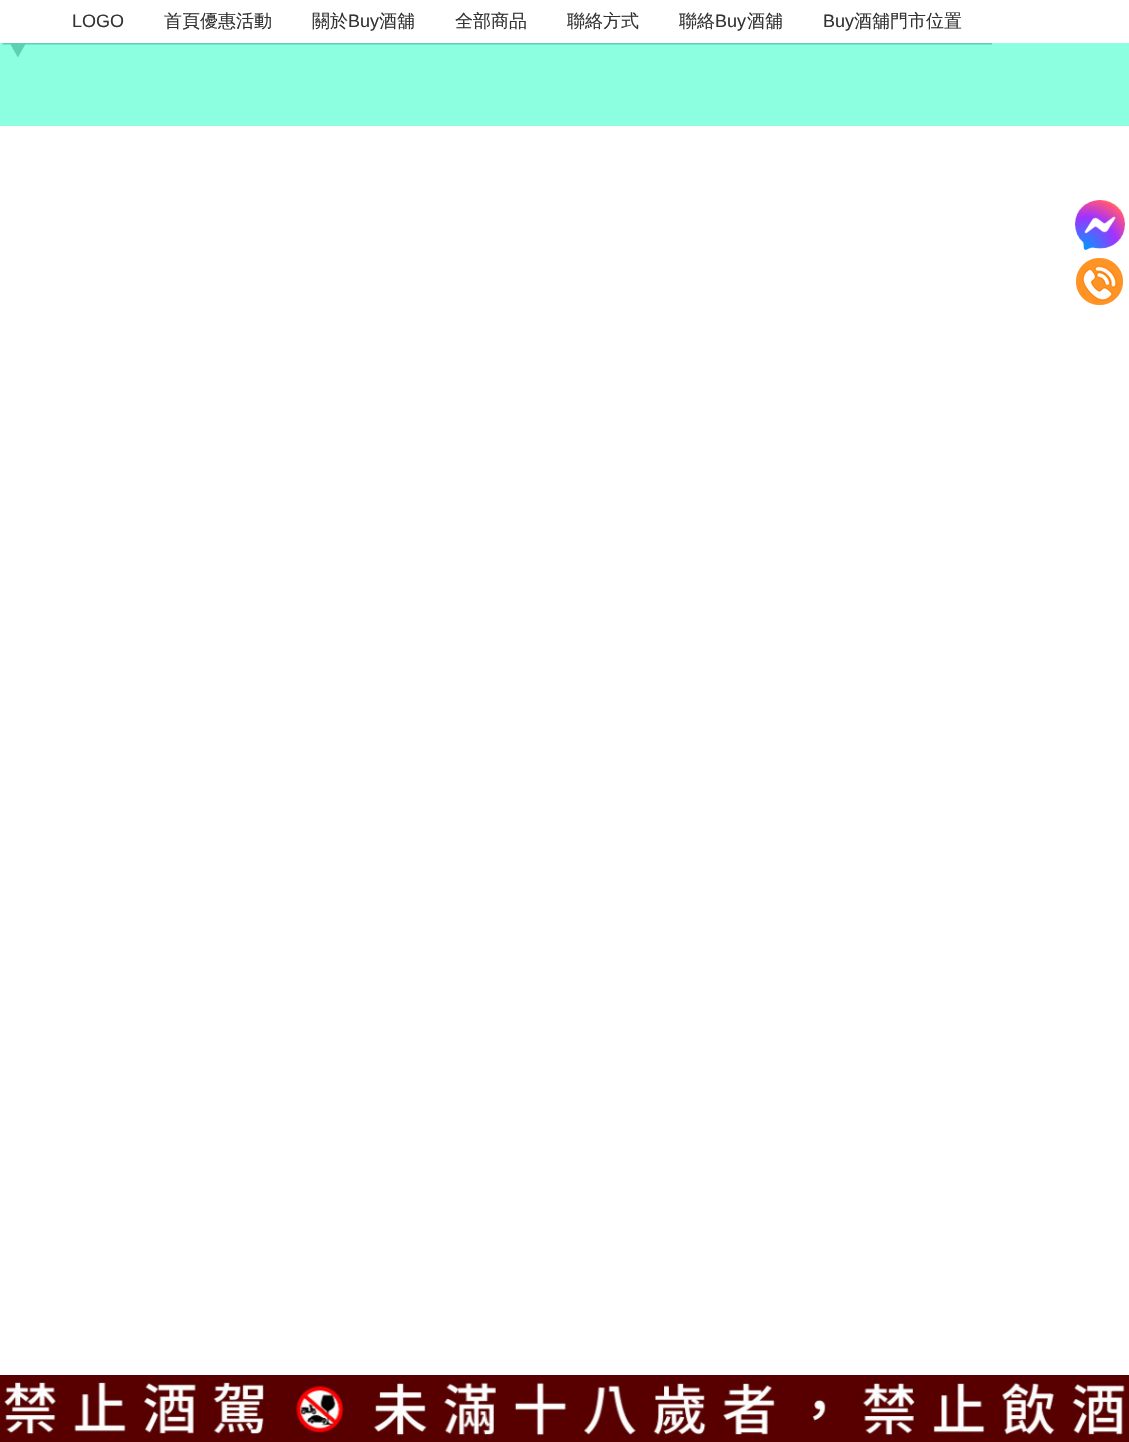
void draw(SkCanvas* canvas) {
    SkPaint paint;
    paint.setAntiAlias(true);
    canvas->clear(0xFFFFFFFF);
    paint.setColor(0xFF8CFFE0);
    canvas->drawRect(SkRect::MakeXYWH(0, 43, 1129, 83), paint);
    SkFont font1(fontMgr->matchFamilyStyle("Liberation Sans", SkFontStyle::Normal()), 18);
    font1.setSubpixel(true);
    paint.setColor(0xFF333333);
    canvas->drawString("LOGO", 72, 27, font1, paint);
    SkFont font2(fontMgr->matchFamilyStyle("WenQuanYi Zen Hei", SkFontStyle(500, SkFontStyle::kNormal_Width, SkFontStyle::kUpright_Slant)), 18);
    font2.setSubpixel(true);
    canvas->drawString("首頁優惠活動", 164, 27, font2, paint);
    canvas->drawString("關於", 312, 27, font2, paint);
    canvas->drawString("Buy", 348, 27, font1, paint);
    canvas->drawString("酒舖", 379, 27, font2, paint);
    canvas->drawString("全部商品", 455, 27, font2, paint);
    canvas->drawString("聯絡方式", 567, 27, font2, paint);
    canvas->drawString("聯絡", 679, 27, font2, paint);
    canvas->drawString("Buy", 715, 27, font1, paint);
    canvas->drawString("酒舖", 747, 27, font2, paint);
    canvas->drawString("Buy", 823, 27, font1, paint);
    canvas->drawString("酒舖門市位置", 854, 27, font2, paint);
    canvas->drawImageRect(SkImages::DeferredFromEncodedData(SkData::MakeFromFileName("img1.png")), SkRect::MakeXYWH(2, 43, 990, 14), SkSamplingOptions());
    canvas->drawImageRect(SkImages::DeferredFromEncodedData(SkData::MakeFromFileName("img2.png")), SkRect::MakeXYWH(1075, 200, 50, 50), SkSamplingOptions());
    canvas->drawImageRect(SkImages::DeferredFromEncodedData(SkData::MakeFromFileName("img3.png")), SkRect::MakeXYWH(1076, 258, 47, 47), SkSamplingOptions());
    paint.setColor(0xFF580000);
    canvas->drawRect(SkRect::MakeXYWH(0, 1375, 1129, 67), paint);
    canvas->drawImageRect(SkImages::DeferredFromEncodedData(SkData::MakeFromFileName("img4.png")), SkRect::MakeXYWH(0, 1380, 1125, 57), SkSamplingOptions());
}
